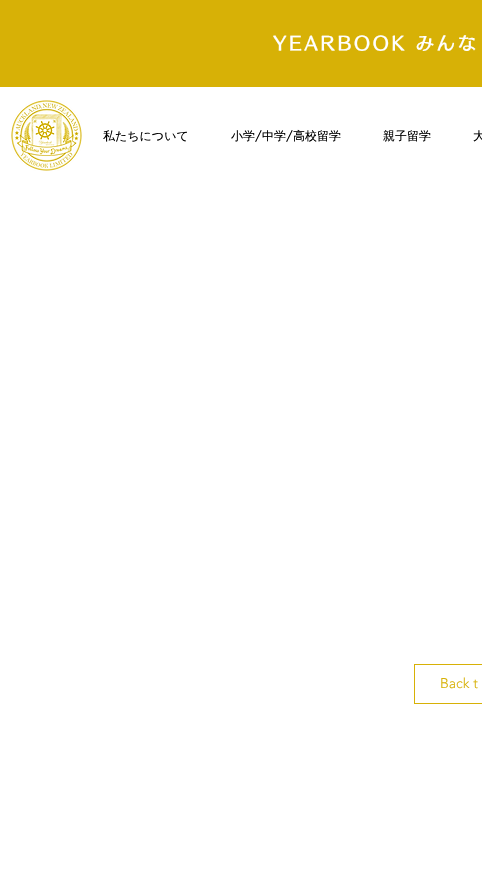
void draw(SkCanvas* canvas) {
    SkPaint paint;
    paint.setAntiAlias(true);
    auto spacedText = [&](const char* s, float x, float y, const SkFont& font, const SkPaint& ink, float letter, float word) {
        std::vector<SkGlyphID> glyphs(font.countText(s, strlen(s), SkTextEncoding::kUTF8));
        std::vector<float> xs(glyphs.size());
        font.textToGlyphs(s, strlen(s), SkTextEncoding::kUTF8, glyphs);
        font.getXPos(glyphs, xs, x);
        float extra = 0;
        for (size_t i = 0; i < glyphs.size(); i++) {
            xs[i] += extra;
            extra += letter + word * (glyphs[i] == font.unicharToGlyph(' '));
        }
        canvas->drawTextBlob(SkTextBlob::MakeFromPosHGlyphs(glyphs, xs, y, font), 0, 0, ink);
    };
    canvas->clear(0xFFFFFFFF);
    paint.setColor(0xFFD7B106);
    canvas->drawRect(SkRect::MakeXYWH(0, 0, 482, 87), paint);
    SkFont font1(fontMgr->matchFamilyStyle("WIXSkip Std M", SkFontStyle::Bold()), 18);
    font1.setSubpixel(true);
    paint.setColor(0xFFFFFFFF);
    spacedText("YEARBOOK みんな", 273, 50, font1, paint, 2.75f, 0);
    canvas->drawImageRect(SkImages::DeferredFromEncodedData(SkData::MakeFromFileName("img1.png")), SkRect::MakeXYWH(11, 100, 71, 71), SkSamplingOptions());
    SkFont font2(fontMgr->matchFamilyStyle("WenQuanYi Zen Hei", SkFontStyle(500, SkFontStyle::kNormal_Width, SkFontStyle::kUpright_Slant)), 12);
    font2.setSubpixel(true);
    paint.setColor(0xFF000000);
    canvas->drawString("私たちについて", 103, 140, font2, paint);
    canvas->drawString("小学", 231, 140, font2, paint);
    SkFont font3(fontMgr->matchFamilyStyle("futura", SkFontStyle::Normal()), 12);
    font3.setSubpixel(true);
    canvas->drawString("/", 255, 140, font3, paint);
    canvas->drawString("中学", 262, 140, font2, paint);
    canvas->drawString("/", 286, 140, font3, paint);
    canvas->drawString("高校留学", 293, 140, font2, paint);
    canvas->drawString("親子留学", 383, 140, font2, paint);
    canvas->drawString("大", 473, 140, font2, paint);
    paint.setStyle(SkPaint::kStroke_Style);
    paint.setStrokeWidth(1);
    paint.setColor(0xFFD7B106);
    canvas->drawRect(SkRect::MakeXYWH(414.5f, 664.5f, 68, 39), paint);
    SkFont font4(fontMgr->matchFamilyStyle("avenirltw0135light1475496", SkFontStyle(300, SkFontStyle::kNormal_Width, SkFontStyle::kUpright_Slant)), 14);
    font4.setSubpixel(true);
    paint.setStyle(SkPaint::kFill_Style);
    canvas->drawString("Back t", 440, 688, font4, paint);
}
